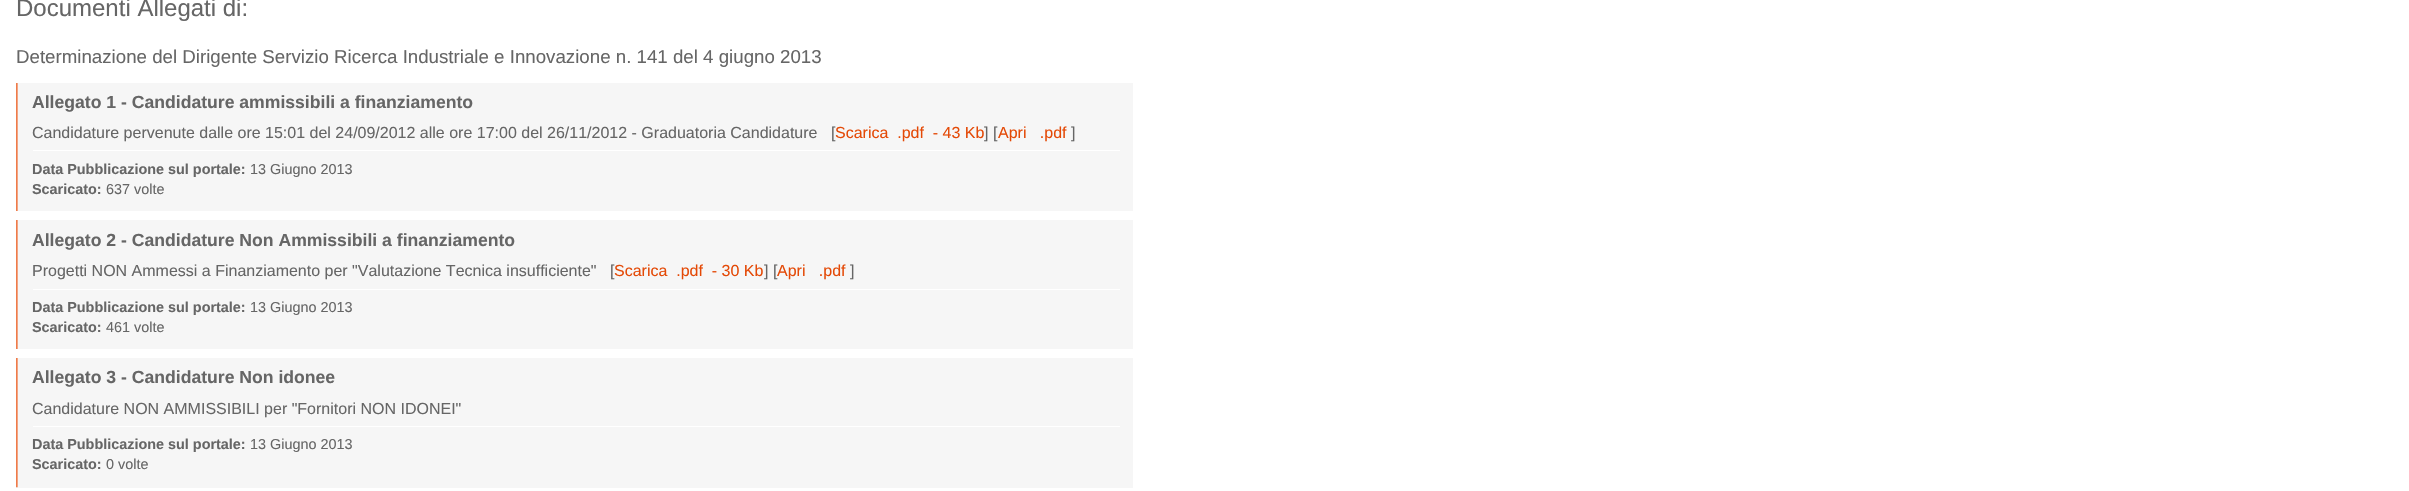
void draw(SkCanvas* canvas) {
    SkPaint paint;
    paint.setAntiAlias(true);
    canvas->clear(0xFFFFFFFF);
    SkFont font1(fontMgr->matchFamilyStyle("Liberation Sans", SkFontStyle::Normal()), 24);
    font1.setSubpixel(true);
    paint.setColor(0xFF666666);
    canvas->drawString("Documenti Allegati di:", 16, 16, font1, paint);
    SkFont font2(fontMgr->matchFamilyStyle("Liberation Sans", SkFontStyle::Normal()), 18.7f);
    font2.setSubpixel(true);
    canvas->drawString("Determinazione del Dirigente Servizio Ricerca Industriale e Innovazione n. 141 del 4 giugno 2013", 16, 63, font2, paint);
    paint.setColor(0xFFF6F6F6);
    canvas->drawRect(SkRect::MakeXYWH(16, 83, 1117, 128), paint);
    canvas->drawImageRect(SkImages::DeferredFromEncodedData(SkData::MakeFromFileName("img1.png")), SkRect::MakeXYWH(16, 83, 2, 128), SkSamplingOptions());
    SkFont font3(fontMgr->matchFamilyStyle("Liberation Sans", SkFontStyle::Bold()), 17.6f);
    font3.setSubpixel(true);
    paint.setColor(0xFF666666);
    canvas->drawString("Allegato 1 - Candidature ammissibili a finanziamento", 32, 108, font3, paint);
    SkFont font4(fontMgr->matchFamilyStyle("Liberation Sans", SkFontStyle::Normal()), 16);
    font4.setSubpixel(true);
    canvas->drawString("Candidature pervenute dalle ore 15:01 del 24/09/2012 alle ore 17:00 del 26/11/2012 - Graduatoria Candidature", 32, 138, font4, paint);
    canvas->drawString("[", 831, 138, font4, paint);
    paint.setColor(0xFFE44906);
    canvas->drawString("Scarica  .pdf  - 43 Kb", 835, 138, font4, paint);
    paint.setColor(0xFF666666);
    canvas->drawString("] [", 984, 138, font4, paint);
    paint.setColor(0xFFE44906);
    canvas->drawString("Apri   .pdf", 998, 138, font4, paint);
    paint.setColor(0xFF666666);
    canvas->drawString("]", 1071, 138, font4, paint);
    paint.setColor(0xFFFFFFFF);
    canvas->drawRect(SkRect::MakeXYWH(33, 150, 1087, 1), paint);
    SkFont font5(fontMgr->matchFamilyStyle("Liberation Sans", SkFontStyle::Bold()), 14.4f);
    font5.setSubpixel(true);
    paint.setColor(0xFF666666);
    canvas->drawString("Data Pubblicazione sul portale:", 32, 174, font5, paint);
    SkFont font6(fontMgr->matchFamilyStyle("Liberation Sans", SkFontStyle::Normal()), 14.4f);
    font6.setSubpixel(true);
    canvas->drawString("13 Giugno 2013", 250, 174, font6, paint);
    canvas->drawString("Scaricato:", 32, 194, font5, paint);
    canvas->drawString("637 volte", 106, 194, font6, paint);
    paint.setColor(0xFFF6F6F6);
    canvas->drawRect(SkRect::MakeXYWH(16, 220, 1117, 129), paint);
    canvas->drawImageRect(SkImages::DeferredFromEncodedData(SkData::MakeFromFileName("img2.png")), SkRect::MakeXYWH(16, 220, 2, 129), SkSamplingOptions());
    paint.setColor(0xFF666666);
    canvas->drawString("Allegato 2 - Candidature Non Ammissibili a finanziamento", 32, 246, font3, paint);
    canvas->drawString("Progetti NON Ammessi a Finanziamento per \"Valutazione Tecnica insufficiente\"", 32, 276, font4, paint);
    canvas->drawString("[", 610, 276, font4, paint);
    paint.setColor(0xFFE44906);
    canvas->drawString("Scarica  .pdf  - 30 Kb", 614, 276, font4, paint);
    paint.setColor(0xFF666666);
    canvas->drawString("] [", 764, 276, font4, paint);
    paint.setColor(0xFFE44906);
    canvas->drawString("Apri   .pdf", 777, 276, font4, paint);
    paint.setColor(0xFF666666);
    canvas->drawString("]", 850, 276, font4, paint);
    paint.setColor(0xFFFFFFFF);
    canvas->drawRect(SkRect::MakeXYWH(33, 289, 1087, 1), paint);
    paint.setColor(0xFF666666);
    canvas->drawString("Data Pubblicazione sul portale:", 32, 312, font5, paint);
    canvas->drawString("13 Giugno 2013", 250, 312, font6, paint);
    canvas->drawString("Scaricato:", 32, 332, font5, paint);
    canvas->drawString("461 volte", 106, 332, font6, paint);
    paint.setColor(0xFFF6F6F6);
    canvas->drawRect(SkRect::MakeXYWH(16, 358, 1117, 130), paint);
    canvas->drawImageRect(SkImages::DeferredFromEncodedData(SkData::MakeFromFileName("img3.png")), SkRect::MakeXYWH(16, 358, 2, 130), SkSamplingOptions());
    paint.setColor(0xFF666666);
    canvas->drawString("Allegato 3 - Candidature Non idonee", 32, 383, font3, paint);
    canvas->drawString("Candidature NON AMMISSIBILI per \"Fornitori NON IDONEI\"", 32, 414, font4, paint);
    paint.setColor(0xFFFFFFFF);
    canvas->drawRect(SkRect::MakeXYWH(33, 426, 1087, 1), paint);
    paint.setColor(0xFF666666);
    canvas->drawString("Data Pubblicazione sul portale:", 32, 449, font5, paint);
    canvas->drawString("13 Giugno 2013", 250, 449, font6, paint);
    canvas->drawString("Scaricato:", 32, 469, font5, paint);
    canvas->drawString("0 volte", 106, 469, font6, paint);
}
